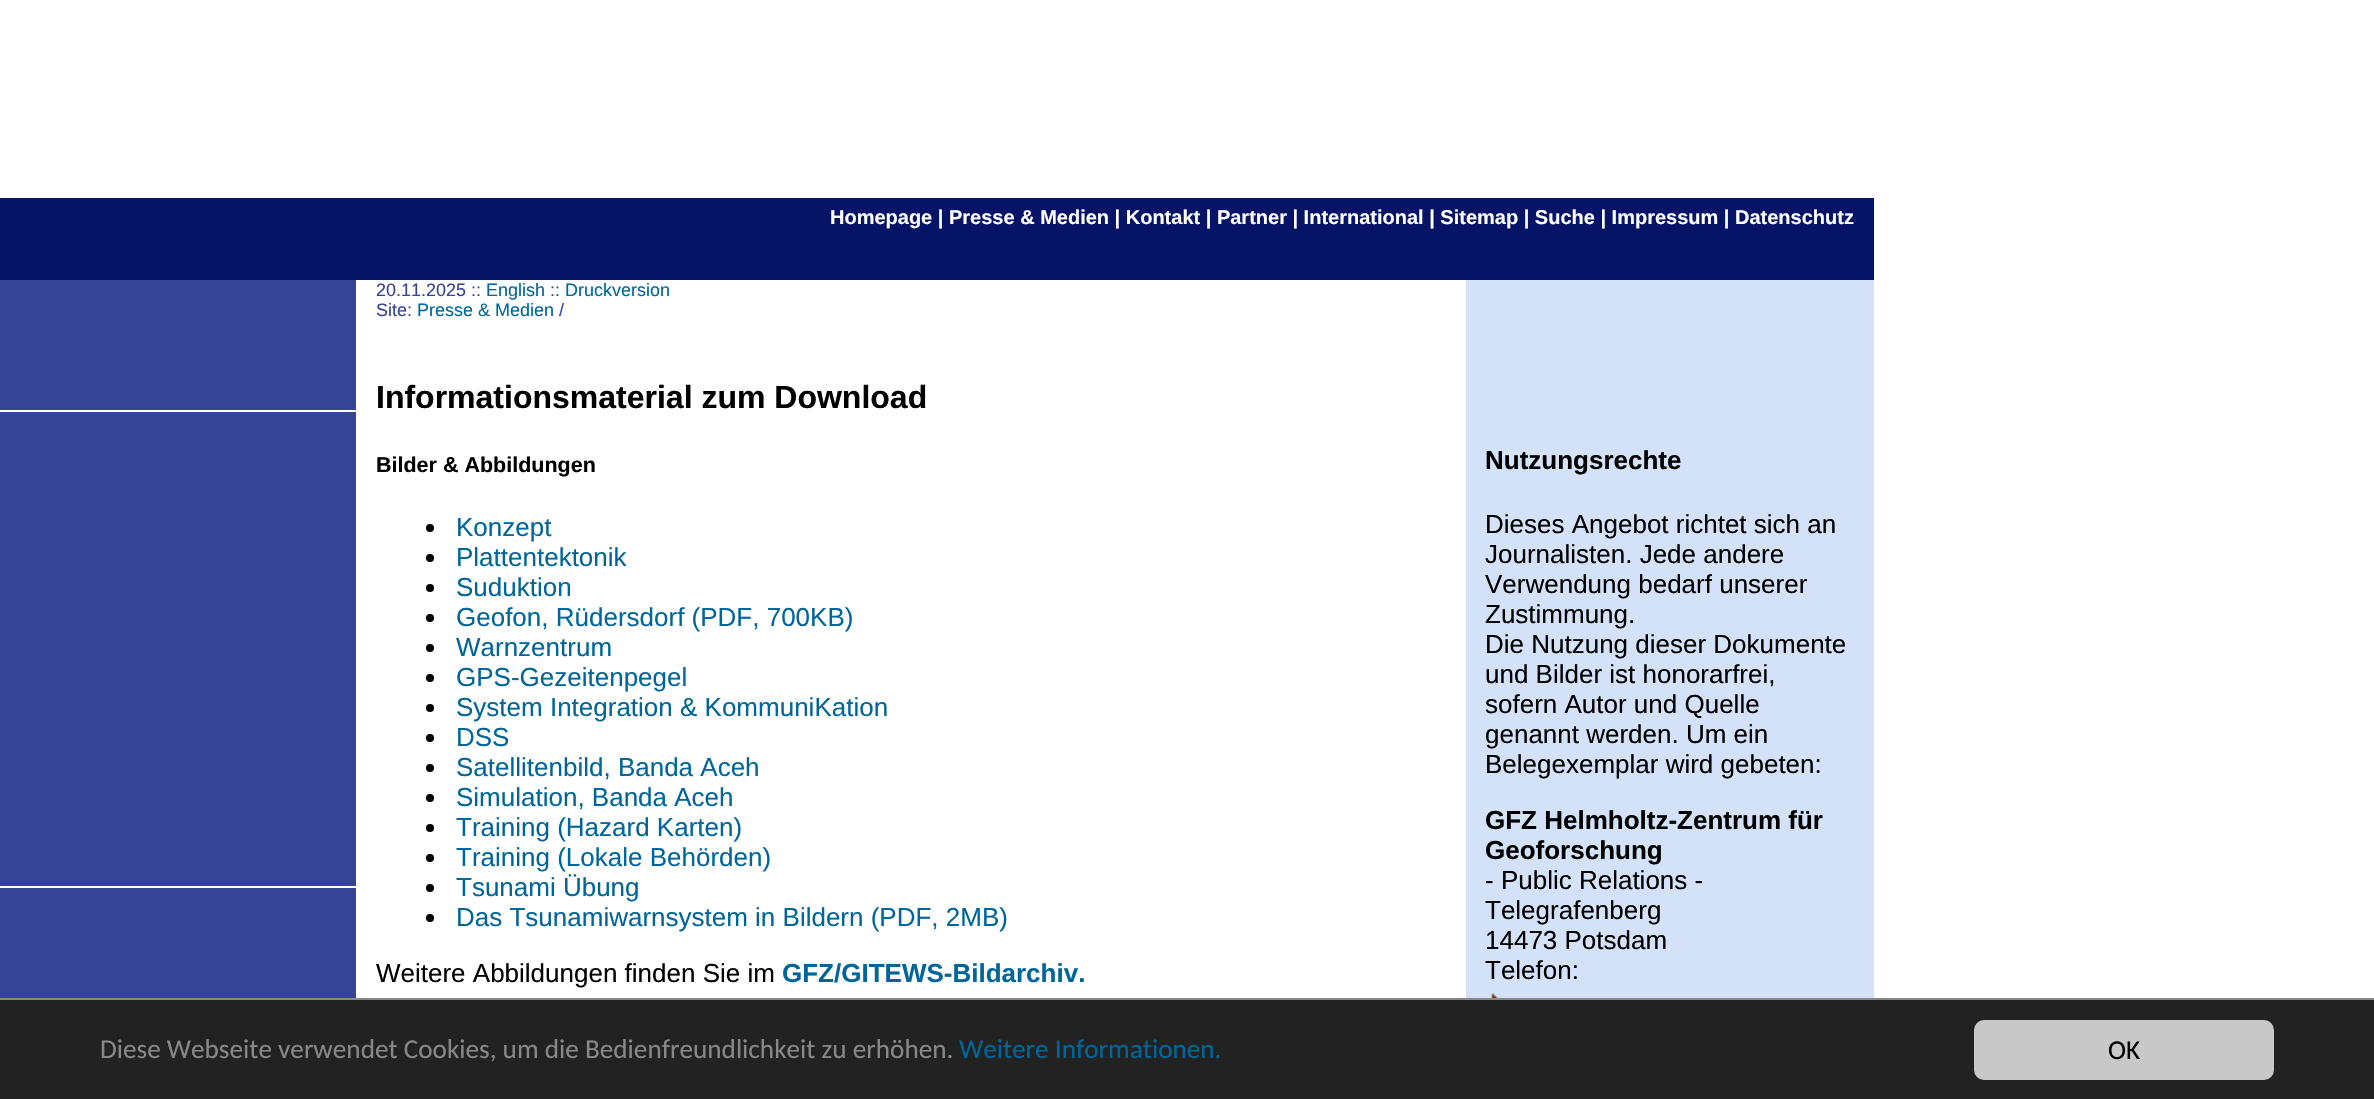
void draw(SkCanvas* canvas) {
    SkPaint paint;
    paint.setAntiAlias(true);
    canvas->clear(0xFFFFFFFF);
    paint.setColor(0xFF061467);
    canvas->drawRect(SkRect::MakeXYWH(0, 198, 1874, 82), paint);
    SkFont font1(fontMgr->matchFamilyStyle("Liberation Sans", SkFontStyle::Bold()), 20);
    font1.setSubpixel(true);
    paint.setColor(0xFFFFFFFF);
    canvas->drawString("Homepage | Presse & Medien | Kontakt | Partner | International | Sitemap | Suche | Impressum | Datenschutz", 830, 224, font1, paint);
    paint.setColor(0xFF364497);
    canvas->drawRect(SkRect::MakeXYWH(0, 280, 356, 718), paint);
    paint.setColor(0xFFFFFFFF);
    canvas->drawRect(SkRect::MakeXYWH(0, 410, 356, 2), paint);
    canvas->drawRect(SkRect::MakeXYWH(0, 886, 356, 2), paint);
    SkFont font2(fontMgr->matchFamilyStyle("Liberation Sans", SkFontStyle::Normal()), 18);
    font2.setSubpixel(true);
    paint.setColor(0xFF364497);
    canvas->drawString("20.11.2025 ::", 376, 296, font2, paint);
    paint.setColor(0xFF006699);
    canvas->drawString("English", 486, 296, font2, paint);
    paint.setColor(0xFF364497);
    canvas->drawString("::", 550, 296, font2, paint);
    paint.setColor(0xFF006699);
    canvas->drawString("Druckversion", 565, 296, font2, paint);
    paint.setColor(0xFF364497);
    canvas->drawString("Site:", 376, 316, font2, paint);
    paint.setColor(0xFF006699);
    canvas->drawString("Presse & Medien", 417, 316, font2, paint);
    paint.setColor(0xFF364497);
    canvas->drawString("/", 559, 316, font2, paint);
    SkFont font3(fontMgr->matchFamilyStyle("Liberation Sans", SkFontStyle::Bold()), 32);
    font3.setSubpixel(true);
    paint.setColor(0xFF000000);
    canvas->drawString("Informationsmaterial zum Download", 376, 408, font3, paint);
    SkFont font4(fontMgr->matchFamilyStyle("Liberation Sans", SkFontStyle::Bold()), 21.5f);
    font4.setSubpixel(true);
    canvas->drawString("Bilder & Abbildungen", 376, 472, font4, paint);
    canvas->drawCircle(430, 528, 4, paint);
    SkFont font5(fontMgr->matchFamilyStyle("Liberation Sans", SkFontStyle::Normal()), 26);
    font5.setSubpixel(true);
    paint.setColor(0xFF006699);
    canvas->drawString("Konzept", 456, 536, font5, paint);
    paint.setColor(0xFF000000);
    canvas->drawCircle(430, 558, 4, paint);
    paint.setColor(0xFF006699);
    canvas->drawString("Plattentektonik", 456, 566, font5, paint);
    paint.setColor(0xFF000000);
    canvas->drawCircle(430, 588, 4, paint);
    paint.setColor(0xFF006699);
    canvas->drawString("Suduktion", 456, 596, font5, paint);
    paint.setColor(0xFF000000);
    canvas->drawCircle(430, 618, 4, paint);
    paint.setColor(0xFF006699);
    canvas->drawString("Geofon, Rüdersdorf (PDF, 700KB)", 456, 626, font5, paint);
    paint.setColor(0xFF000000);
    canvas->drawCircle(430, 648, 4, paint);
    paint.setColor(0xFF006699);
    canvas->drawString("Warnzentrum", 456, 656, font5, paint);
    paint.setColor(0xFF000000);
    canvas->drawCircle(430, 678, 4, paint);
    paint.setColor(0xFF006699);
    canvas->drawString("GPS-Gezeitenpegel", 456, 686, font5, paint);
    paint.setColor(0xFF000000);
    canvas->drawCircle(430, 708, 4, paint);
    paint.setColor(0xFF006699);
    canvas->drawString("System Integration & KommuniKation", 456, 716, font5, paint);
    paint.setColor(0xFF000000);
    canvas->drawCircle(430, 738, 4, paint);
    paint.setColor(0xFF006699);
    canvas->drawString("DSS", 456, 746, font5, paint);
    paint.setColor(0xFF000000);
    canvas->drawCircle(430, 768, 4, paint);
    paint.setColor(0xFF006699);
    canvas->drawString("Satellitenbild, Banda Aceh", 456, 776, font5, paint);
    paint.setColor(0xFF000000);
    canvas->drawCircle(430, 798, 4, paint);
    paint.setColor(0xFF006699);
    canvas->drawString("Simulation, Banda Aceh", 456, 806, font5, paint);
    paint.setColor(0xFF000000);
    canvas->drawCircle(430, 828, 4, paint);
    paint.setColor(0xFF006699);
    canvas->drawString("Training (Hazard Karten)", 456, 836, font5, paint);
    paint.setColor(0xFF000000);
    canvas->drawCircle(430, 858, 4, paint);
    paint.setColor(0xFF006699);
    canvas->drawString("Training (Lokale Behörden)", 456, 866, font5, paint);
    paint.setColor(0xFF000000);
    canvas->drawCircle(430, 888, 4, paint);
    paint.setColor(0xFF006699);
    canvas->drawString("Tsunami Übung", 456, 896, font5, paint);
    paint.setColor(0xFF000000);
    canvas->drawCircle(430, 918, 4, paint);
    paint.setColor(0xFF006699);
    canvas->drawString("Das Tsunamiwarnsystem in Bildern (PDF, 2MB)", 456, 926, font5, paint);
    paint.setColor(0xFF000000);
    canvas->drawString("Weitere Abbildungen finden Sie im", 376, 982, font5, paint);
    SkFont font6(fontMgr->matchFamilyStyle("Liberation Sans", SkFontStyle::Bold()), 26);
    font6.setSubpixel(true);
    paint.setColor(0xFF006699);
    canvas->drawString("GFZ/GITEWS-Bildarchiv.", 782, 982, font6, paint);
    paint.setColor(0xFFD3E2F9);
    canvas->drawRect(SkRect::MakeXYWH(1466, 280, 408, 718), paint);
    paint.setColor(0xFF000000);
    canvas->drawString("Nutzungsrechte", 1485, 469, font6, paint);
    canvas->drawString("Dieses Angebot richtet sich an", 1485, 533, font5, paint);
    canvas->drawString("Journalisten. Jede andere", 1485, 563, font5, paint);
    canvas->drawString("Verwendung bedarf unserer", 1485, 593, font5, paint);
    canvas->drawString("Zustimmung.", 1485, 623, font5, paint);
    canvas->drawString("Die Nutzung dieser Dokumente", 1485, 653, font5, paint);
    canvas->drawString("und Bilder ist honorarfrei,", 1485, 683, font5, paint);
    canvas->drawString("sofern Autor und Quelle", 1485, 713, font5, paint);
    canvas->drawString("genannt werden. Um ein", 1485, 743, font5, paint);
    canvas->drawString("Belegexemplar wird gebeten:", 1485, 773, font5, paint);
    canvas->drawString("GFZ Helmholtz-Zentrum für", 1485, 829, font6, paint);
    canvas->drawString("Geoforschung", 1485, 859, font6, paint);
    canvas->drawString("- Public Relations -", 1485, 889, font5, paint);
    canvas->drawString("Telegrafenberg", 1485, 919, font5, paint);
    canvas->drawString("14473 Potsdam", 1485, 949, font5, paint);
    canvas->drawString("Telefon:", 1485, 979, font5, paint);
    canvas->drawImageRect(SkImages::DeferredFromEncodedData(SkData::MakeFromFileName("img1.png")), SkRect::MakeXYWH(1491, 993, 8, 5), SkSamplingOptions());
    paint.setColor(0xFF222222);
    canvas->drawRect(SkRect::MakeXYWH(0, 1000, 2374, 99), paint);
    paint.setColor(0xFF888888);
    canvas->drawRect(SkRect::MakeXYWH(0, 998, 2374, 2), paint);
    SkFont font7(fontMgr->matchFamilyStyle("Carlito", SkFontStyle::Normal()), 27.2f);
    font7.setSubpixel(true);
    canvas->drawString("Diese Webseite verwendet Cookies, um die Bedienfreundlichkeit zu erhöhen.", 100, 1058, font7, paint);
    paint.setColor(0xFF006699);
    canvas->drawString("Weitere Informationen.", 959, 1058, font7, paint);
    paint.setColor(0xFFC8C8C8);
    canvas->drawRoundRect(SkRect::MakeXYWH(1974, 1020, 300, 60), 10, 10, paint);
    paint.setColor(0xFF000000);
    canvas->drawString("OK", 2108, 1059, font7, paint);
}
